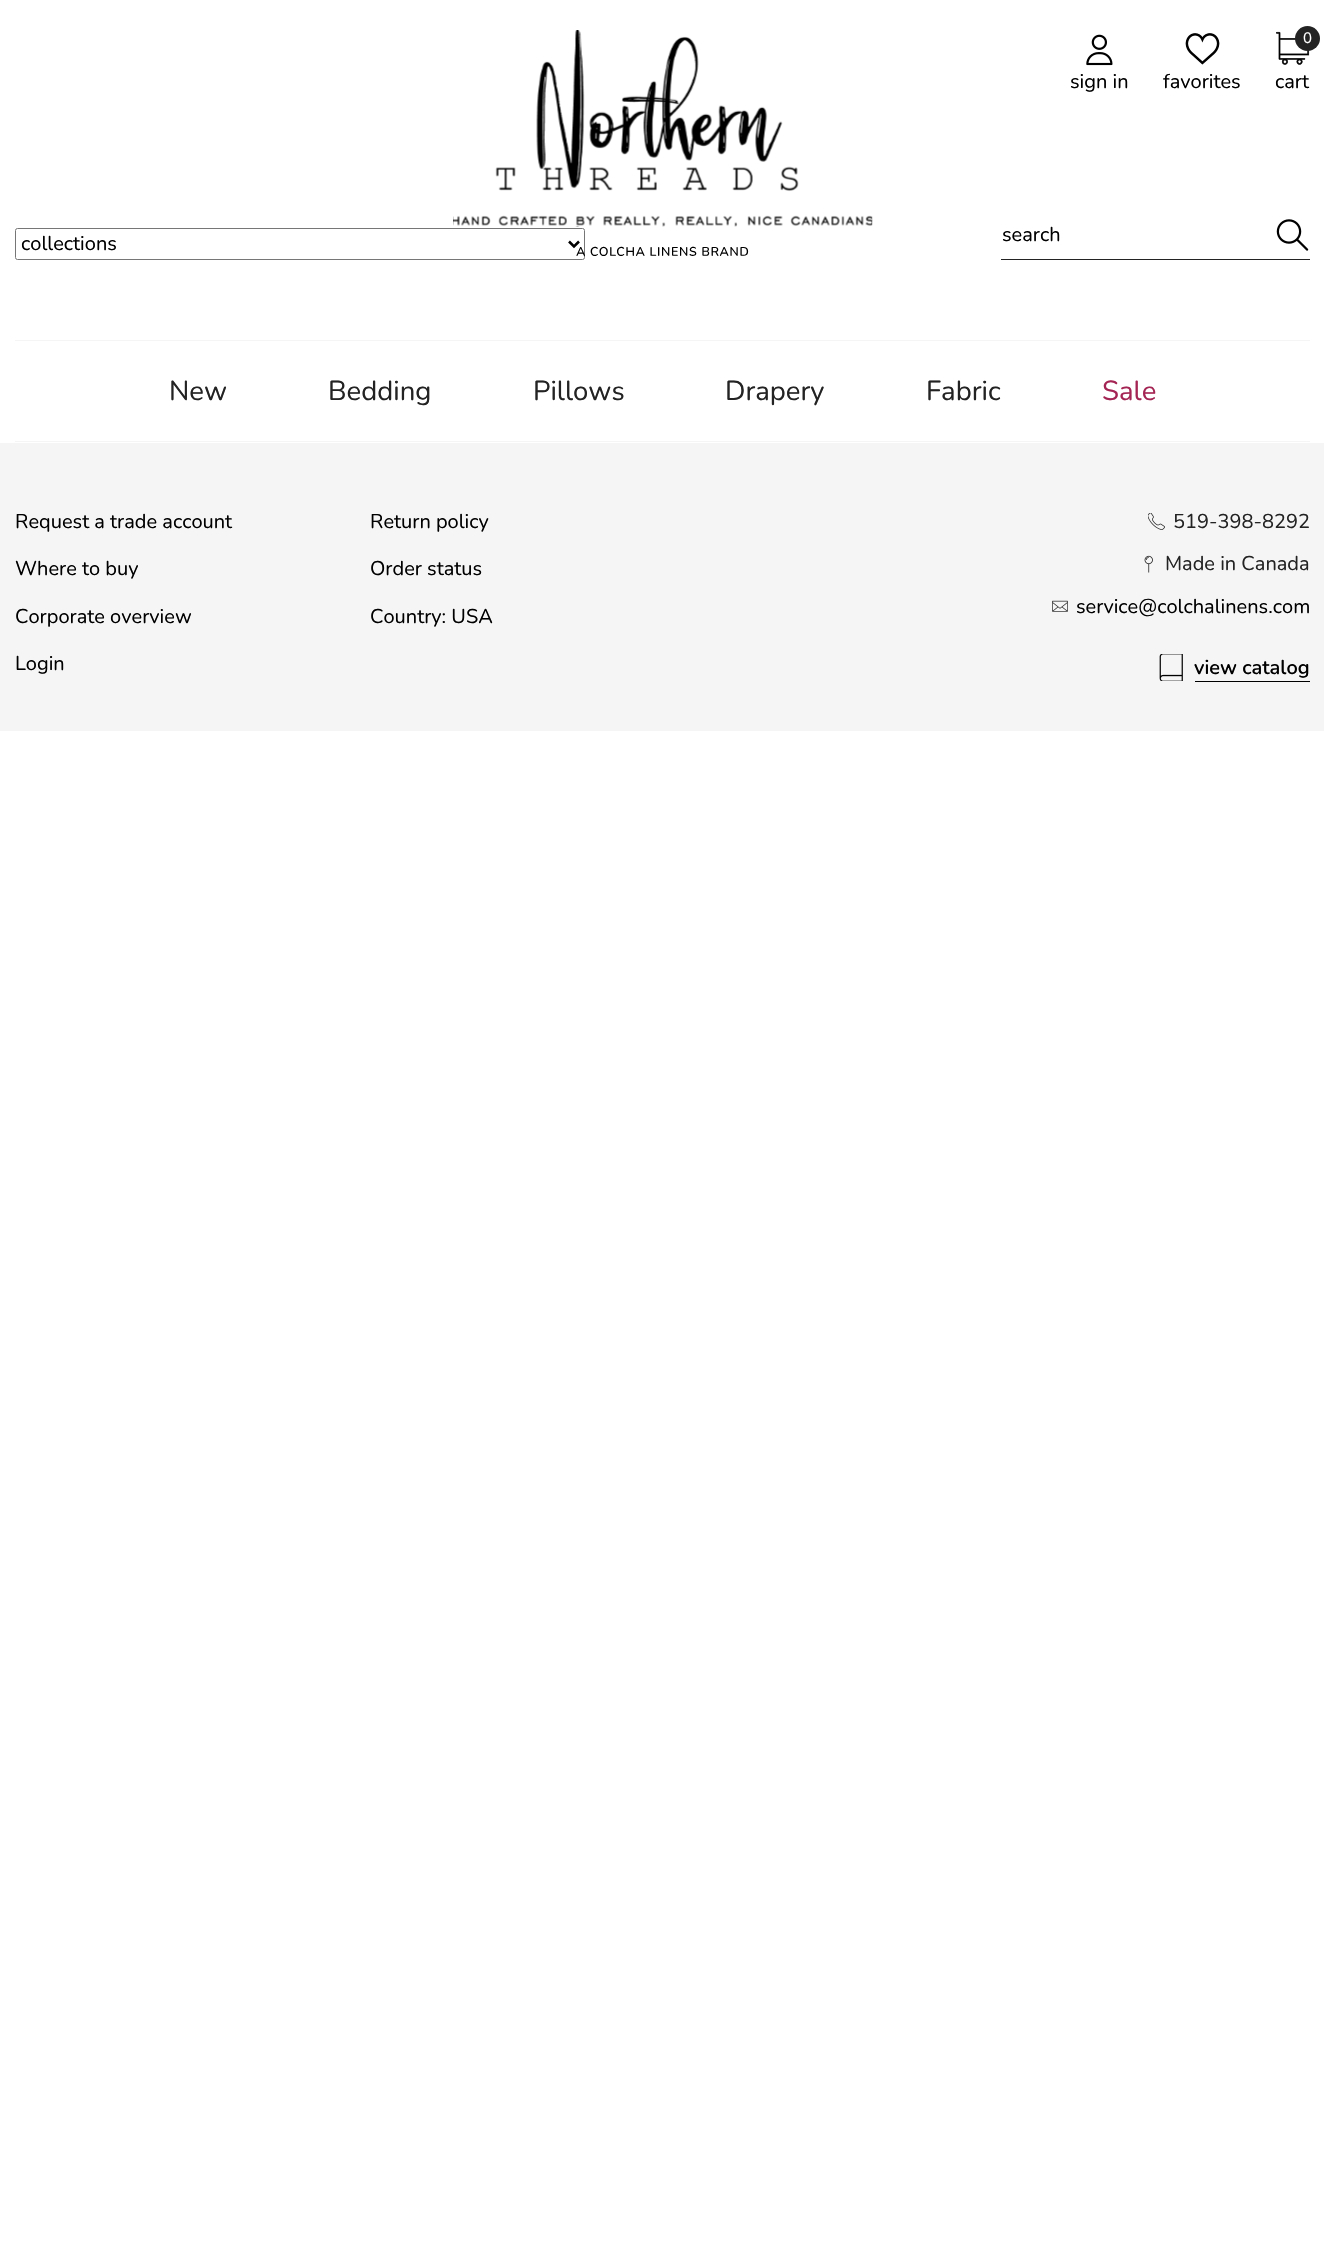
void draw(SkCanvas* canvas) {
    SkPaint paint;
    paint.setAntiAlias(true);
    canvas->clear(0xFFFFFFFF);
    paint.setStyle(SkPaint::kStroke_Style);
    paint.setStrokeWidth(1);
    paint.setColor(0xFF767676);
    canvas->drawRoundRect(SkRect::MakeXYWH(15.5f, 228.5f, 569, 31), 2, 2, paint);
    paint.setStrokeWidth(2.5f);
    paint.setColor(0xFF000000);
    canvas->drawPath(SkPathBuilder().moveTo(569, 241.5f).lineTo(574, 246.5f).lineTo(579, 241.5f).detach(), paint);
    SkFont font1(fontMgr->matchFamilyStyle("Nunito", SkFontStyle::Normal()), 20);
    font1.setSubpixel(true);
    paint.setStyle(SkPaint::kFill_Style);
    canvas->drawString("collections", 21, 250, font1, paint);
    canvas->drawImageRect(SkImages::DeferredFromEncodedData(SkData::MakeFromFileName("img1.png")), SkRect::MakeXYWH(453, 30, 420, 226), SkSamplingOptions());
    canvas->drawImageRect(SkImages::DeferredFromEncodedData(SkData::MakeFromFileName("img2.png")), SkRect::MakeXYWH(1086, 34, 27, 32), SkSamplingOptions());
    canvas->drawString("sign in", 1070, 88, font1, paint);
    canvas->drawImageRect(SkImages::DeferredFromEncodedData(SkData::MakeFromFileName("img3.png")), SkRect::MakeXYWH(1185, 33, 35, 32), SkSamplingOptions());
    canvas->drawString("favorites", 1163, 88, font1, paint);
    canvas->drawImageRect(SkImages::DeferredFromEncodedData(SkData::MakeFromFileName("img4.png")), SkRect::MakeXYWH(1276, 31, 34, 34), SkSamplingOptions());
    paint.setColor(0xFF232323);
    canvas->drawCircle(1307.5f, 38.5f, 12.5f, paint);
    SkFont font2(fontMgr->matchFamilyStyle("Nunito", SkFontStyle::Normal()), 15);
    font2.setSubpixel(true);
    paint.setColor(0xFFFFFFFF);
    canvas->drawString("0", 1303, 43, font2, paint);
    paint.setColor(0xFF000000);
    canvas->drawString("cart", 1275, 88, font1, paint);
    canvas->drawImageRect(SkImages::DeferredFromEncodedData(SkData::MakeFromFileName("img5.png")), SkRect::MakeXYWH(1276, 219, 33, 32), SkSamplingOptions());
    paint.setColor(0xFF232323);
    canvas->drawRect(SkRect::MakeXYWH(1001, 259, 309, 1), paint);
    paint.setColor(0xFF000000);
    canvas->drawString("search", 1002, 241, font1, paint);
    paint.setColor(0xFFF5F5F5);
    canvas->drawRect(SkRect::MakeXYWH(15, 340, 1295, 1), paint);
    canvas->drawRect(SkRect::MakeXYWH(15, 441, 1295, 1), paint);
    SkFont font3(fontMgr->matchFamilyStyle("Nunito", SkFontStyle::Normal()), 27.5f);
    font3.setSubpixel(true);
    paint.setColor(0xFF232323);
    canvas->drawString("New", 169, 400, font3, paint);
    canvas->drawString("Bedding", 328, 400, font3, paint);
    canvas->drawString("Pillows", 533, 400, font3, paint);
    canvas->drawString("Drapery", 725, 400, font3, paint);
    canvas->drawString("Fabric", 926, 400, font3, paint);
    paint.setColor(0xFFA42553);
    canvas->drawString("Sale", 1102, 400, font3, paint);
    paint.setColor(0xFFF5F5F5);
    canvas->drawRect(SkRect::MakeXYWH(0, 443, 1324, 288), paint);
    paint.setColor(0xFF000000);
    canvas->drawString("Request a trade account", 15, 528, font1, paint);
    canvas->drawString("Where to buy", 15, 575, font1, paint);
    canvas->drawString("Corporate overview", 15, 623, font1, paint);
    canvas->drawString("Login", 15, 670, font1, paint);
    canvas->drawString("Return policy", 370, 528, font1, paint);
    canvas->drawString("Order status", 370, 575, font1, paint);
    canvas->drawString("Country: USA", 370, 623, font1, paint);
    canvas->drawImageRect(SkImages::DeferredFromEncodedData(SkData::MakeFromFileName("img6.png")), SkRect::MakeXYWH(1148, 513, 17, 17), SkSamplingOptions());
    paint.setColor(0xFF232323);
    canvas->drawString("519-398-8292", 1173, 528, font1, paint);
    canvas->drawImageRect(SkImages::DeferredFromEncodedData(SkData::MakeFromFileName("img7.png")), SkRect::MakeXYWH(1144, 555, 9, 18), SkSamplingOptions());
    canvas->drawString("Made in Canada", 1165, 570, font1, paint);
    canvas->drawImageRect(SkImages::DeferredFromEncodedData(SkData::MakeFromFileName("img8.png")), SkRect::MakeXYWH(1052, 600, 16, 12), SkSamplingOptions());
    paint.setColor(0xFF000000);
    canvas->drawString("service@colchalinens.com", 1076, 613, font1, paint);
    canvas->drawImageRect(SkImages::DeferredFromEncodedData(SkData::MakeFromFileName("img9.png")), SkRect::MakeXYWH(1159, 654, 24, 27), SkSamplingOptions());
    SkFont font4(fontMgr->matchFamilyStyle("Nunito", SkFontStyle(600, SkFontStyle::kNormal_Width, SkFontStyle::kUpright_Slant)), 20);
    font4.setSubpixel(true);
    canvas->drawString("view catalog", 1194, 674, font4, paint);
    canvas->drawRect(SkRect::MakeXYWH(1195, 681, 115, 1), paint);
}
